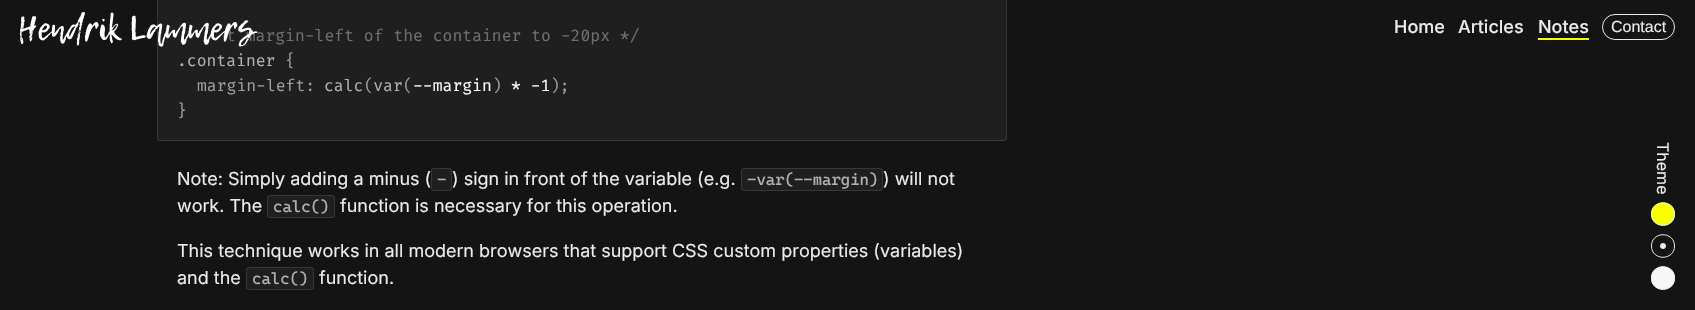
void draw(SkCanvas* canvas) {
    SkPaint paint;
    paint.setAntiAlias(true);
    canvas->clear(0xFF141414);
    paint.setColor(0xFF1F1F1F);
    canvas->drawRoundRect(SkRect::MakeXYWH(157, -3, 850, 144), 3, 3, paint);
    paint.setStyle(SkPaint::kStroke_Style);
    paint.setStrokeWidth(1);
    paint.setColor(0x804D4D4D);
    canvas->drawRoundRect(SkRect::MakeXYWH(157.5f, -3.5f, 849, 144), 2.5f, 2.5f, paint);
    SkFont font1(fontMgr->matchFamilyStyle("Fira Code", SkFontStyle::Normal()), 16);
    font1.setSubpixel(true);
    paint.setStyle(SkPaint::kFill_Style);
    paint.setColor(0xFF6E6E6E);
    canvas->drawString("t margin-left of the container to -20px */", 226, 41, font1, paint);
    paint.setColor(0xFFB0B0B0);
    canvas->drawString(".container", 177, 66, font1, paint);
    paint.setColor(0xFF9D9D9D);
    canvas->drawString("{", 285, 66, font1, paint);
    canvas->drawString("margin-left:", 197, 91, font1, paint);
    paint.setColor(0xFFB0B0B0);
    canvas->drawString("calc var", 324, 91, font1, paint);
    paint.setColor(0xFF9D9D9D);
    canvas->drawString("(", 364, 91, font1, paint);
    canvas->drawString("(", 403, 91, font1, paint);
    canvas->drawString(")", 492, 91, font1, paint);
    canvas->drawString(");", 550, 91, font1, paint);
    paint.setColor(0xFFF8F8F8);
    canvas->drawString("--margin", 413, 91, font1, paint);
    canvas->drawString("* -1", 511, 91, font1, paint);
    paint.setColor(0xFF9D9D9D);
    canvas->drawString("}", 177, 116, font1, paint);
    SkFont font2(fontMgr->matchFamilyStyle("Inter", SkFontStyle::Normal()), 18);
    font2.setSubpixel(true);
    paint.setColor(0xFFEBEBEB);
    canvas->drawString("Note: Simply adding a minus (", 177, 185, font2, paint);
    paint.setColor(0xFF1F1F1F);
    canvas->drawRoundRect(SkRect::MakeXYWH(431, 168, 21, 23), 3, 3, paint);
    paint.setStyle(SkPaint::kStroke_Style);
    paint.setColor(0x804D4D4D);
    canvas->drawRoundRect(SkRect::MakeXYWH(431.5f, 168.5f, 20, 22), 2.5f, 2.5f, paint);
    SkFont font3(fontMgr->matchFamilyStyle("Cascadia Mono", SkFontStyle::Normal()), 16);
    font3.setSubpixel(true);
    paint.setStyle(SkPaint::kFill_Style);
    paint.setColor(0xFFB0B0B0);
    canvas->drawString("-", 437, 185, font3, paint);
    paint.setColor(0xFFEBEBEB);
    canvas->drawString(") sign in front of the variable (e.g.", 452, 185, font2, paint);
    paint.setColor(0xFF1F1F1F);
    canvas->drawRoundRect(SkRect::MakeXYWH(741, 168, 142, 23), 3, 3, paint);
    paint.setStyle(SkPaint::kStroke_Style);
    paint.setColor(0x804D4D4D);
    canvas->drawRoundRect(SkRect::MakeXYWH(741.5f, 168.5f, 141, 22), 2.5f, 2.5f, paint);
    paint.setStyle(SkPaint::kFill_Style);
    paint.setColor(0xFFB0B0B0);
    canvas->drawString("-var(--margin)", 747, 185, font3, paint);
    paint.setColor(0xFFEBEBEB);
    canvas->drawString(") will not", 883, 185, font2, paint);
    canvas->drawString("work. The", 177, 212, font2, paint);
    paint.setColor(0xFF1F1F1F);
    canvas->drawRoundRect(SkRect::MakeXYWH(267, 195, 68, 23), 3, 3, paint);
    paint.setStyle(SkPaint::kStroke_Style);
    paint.setColor(0x804D4D4D);
    canvas->drawRoundRect(SkRect::MakeXYWH(267.5f, 195.5f, 67, 22), 2.5f, 2.5f, paint);
    paint.setStyle(SkPaint::kFill_Style);
    paint.setColor(0xFFB0B0B0);
    canvas->drawString("calc()", 273, 212, font3, paint);
    paint.setColor(0xFFEBEBEB);
    canvas->drawString("function is necessary for this operation.", 340, 212, font2, paint);
    canvas->drawString("This technique works in all modern browsers that support CSS custom properties (variables)", 177, 257, font2, paint);
    canvas->drawString("and the", 177, 284, font2, paint);
    paint.setColor(0xFF1F1F1F);
    canvas->drawRoundRect(SkRect::MakeXYWH(246, 267, 68, 23), 3, 3, paint);
    paint.setStyle(SkPaint::kStroke_Style);
    paint.setColor(0x804D4D4D);
    canvas->drawRoundRect(SkRect::MakeXYWH(246.5f, 267.5f, 67, 22), 2.5f, 2.5f, paint);
    paint.setStyle(SkPaint::kFill_Style);
    paint.setColor(0xFFB0B0B0);
    canvas->drawString("calc()", 252, 284, font3, paint);
    paint.setColor(0xFFEBEBEB);
    canvas->drawString("function.", 319, 284, font2, paint);
    canvas->drawImageRect(SkImages::DeferredFromEncodedData(SkData::MakeFromFileName("img1.png")), SkRect::MakeXYWH(20, 12, 238, 35), SkSamplingOptions());
    SkFont font4(fontMgr->matchFamilyStyle("Inter", SkFontStyle(500, SkFontStyle::kNormal_Width, SkFontStyle::kUpright_Slant)), 18);
    font4.setSubpixel(true);
    canvas->drawString("Home", 1394, 33, font4, paint);
    canvas->drawString("Articles", 1458, 33, font4, paint);
    canvas->drawString("Notes", 1538, 33, font4, paint);
    paint.setStyle(SkPaint::kStroke_Style);
    canvas->drawRoundRect(SkRect::MakeXYWH(1602.5f, 14.5f, 72, 25), 12.5f, 12.5f, paint);
    SkFont font5(fontMgr->matchFamilyStyle("Liberation Sans", SkFontStyle::Normal()), 16);
    font5.setSubpixel(true);
    paint.setStyle(SkPaint::kFill_Style);
    canvas->drawString("Contact", 1611, 32, font5, paint);
    paint.setColor(0xFFF7FF00);
    canvas->drawRect(SkRect::MakeXYWH(1538, 38, 51, 2), paint);
    SkFont font6(fontMgr->matchFamilyStyle("Inter", SkFontStyle::Normal()), 16);
    font6.setSubpixel(true);
    paint.setColor(0xFFEBEBEB);
    canvas->save();
    canvas->rotate(90, 1657, 142);
    canvas->drawString("Theme", 1657, 142, font6, paint);
    canvas->restore();
    paint.setColor(0xFFF7FF00);
    canvas->drawPath(SkPathBuilder().moveTo(1675, 214).cubicTo(1675, 229.5f, 1651, 229.5f, 1651, 214).cubicTo(1651, 198.5f, 1675, 198.5f, 1675, 214).close().detach(), paint);
    paint.setStyle(SkPaint::kStroke_Style);
    paint.setColor(0xFFEBEBEB);
    canvas->drawPath(SkPathBuilder().moveTo(1674.5f, 214).cubicTo(1674.5f, 229, 1651.5f, 229, 1651.5f, 214).cubicTo(1651.5f, 199, 1674.5f, 199, 1674.5f, 214).close().moveTo(1674.5f, 246).cubicTo(1674.5f, 261, 1651.5f, 261, 1651.5f, 246).cubicTo(1651.5f, 231, 1674.5f, 231, 1674.5f, 246).close().detach(), paint);
    paint.setStyle(SkPaint::kFill_Style);
    canvas->drawPath(SkPathBuilder().moveTo(1666, 246).cubicTo(1666, 250, 1660, 250, 1660, 246).cubicTo(1660, 242, 1666, 242, 1666, 246).close().detach(), paint);
    paint.setColor(0xFFF7F7F7);
    canvas->drawPath(SkPathBuilder().moveTo(1675, 278).cubicTo(1675, 293.5f, 1651, 293.5f, 1651, 278).cubicTo(1651, 262.5f, 1675, 262.5f, 1675, 278).close().detach(), paint);
    paint.setStyle(SkPaint::kStroke_Style);
    paint.setColor(0xFFEBEBEB);
    canvas->drawPath(SkPathBuilder().moveTo(1674.5f, 278).cubicTo(1674.5f, 293, 1651.5f, 293, 1651.5f, 278).cubicTo(1651.5f, 263, 1674.5f, 263, 1674.5f, 278).close().detach(), paint);
}
